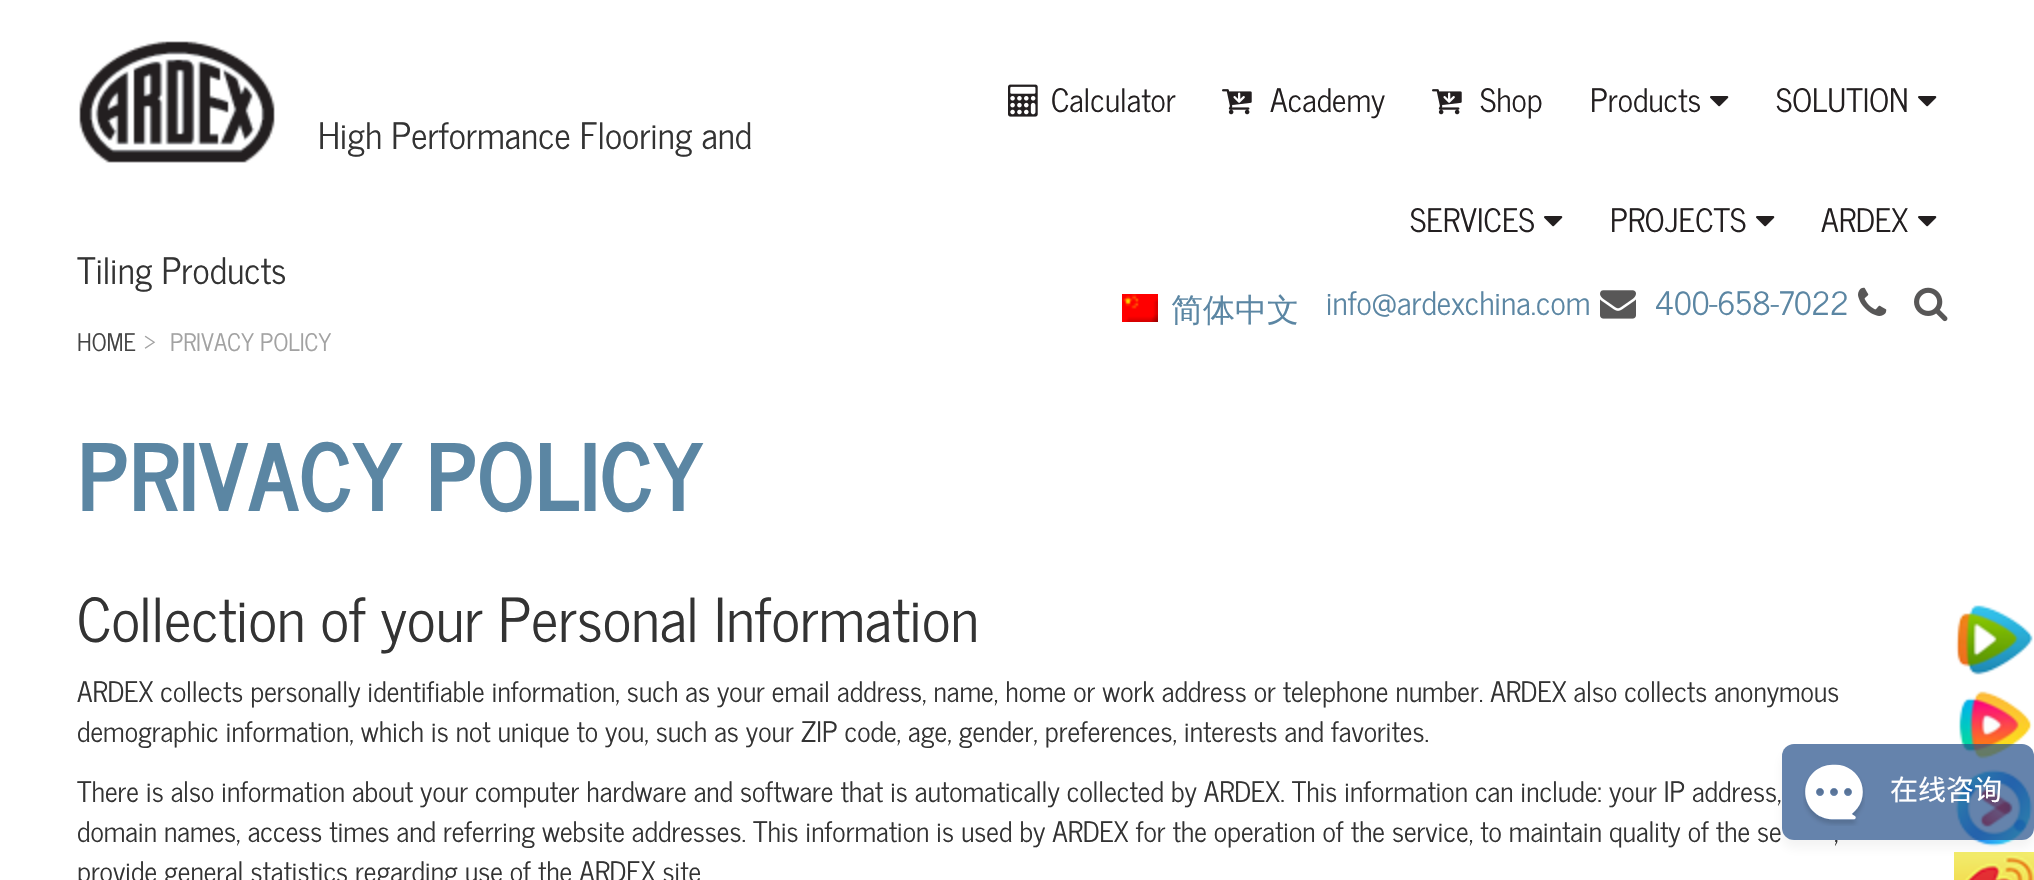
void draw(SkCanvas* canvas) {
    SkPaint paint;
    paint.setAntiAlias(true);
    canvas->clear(0xFFFFFFFF);
    canvas->drawImageRect(SkImages::DeferredFromEncodedData(SkData::MakeFromFileName("img1.png")), SkRect::MakeXYWH(79, 41, 196, 122), SkSamplingOptions());
    SkFont font1(fontMgr->matchFamilyStyle("News Cycle", SkFontStyle::Normal()), 36);
    font1.setSubpixel(true);
    paint.setColor(0xFF333333);
    canvas->drawString("High Performance Flooring and", 318, 149, font1, paint);
    canvas->drawString("Tiling Products", 77, 284, font1, paint);
    canvas->drawImageRect(SkImages::DeferredFromEncodedData(SkData::MakeFromFileName("img2.png")), SkRect::MakeXYWH(1008, 84, 30, 33), SkSamplingOptions());
    SkFont font2(fontMgr->matchFamilyStyle("News Cycle", SkFontStyle::Normal()), 32);
    font2.setSubpixel(true);
    paint.setColor(0xFF231F20);
    canvas->drawString("Calculator", 1051, 112, font2, paint);
    canvas->drawImageRect(SkImages::DeferredFromEncodedData(SkData::MakeFromFileName("img3.png")), SkRect::MakeXYWH(1222, 89, 30, 26), SkSamplingOptions());
    canvas->drawString("Academy", 1270, 112, font2, paint);
    canvas->drawImageRect(SkImages::DeferredFromEncodedData(SkData::MakeFromFileName("img3.png")), SkRect::MakeXYWH(1432, 89, 30, 26), SkSamplingOptions());
    canvas->drawString("Shop", 1480, 112, font2, paint);
    canvas->drawString("Products", 1590, 112, font2, paint);
    canvas->drawImageRect(SkImages::DeferredFromEncodedData(SkData::MakeFromFileName("img4.png")), SkRect::MakeXYWH(1710, 96, 19, 11), SkSamplingOptions());
    canvas->drawString("SOLUTION", 1776, 112, font2, paint);
    canvas->drawImageRect(SkImages::DeferredFromEncodedData(SkData::MakeFromFileName("img4.png")), SkRect::MakeXYWH(1918, 96, 19, 11), SkSamplingOptions());
    canvas->drawString("SERVICES", 1410, 232, font2, paint);
    canvas->drawImageRect(SkImages::DeferredFromEncodedData(SkData::MakeFromFileName("img4.png")), SkRect::MakeXYWH(1544, 216, 19, 11), SkSamplingOptions());
    canvas->drawString("PROJECTS", 1610, 232, font2, paint);
    canvas->drawImageRect(SkImages::DeferredFromEncodedData(SkData::MakeFromFileName("img4.png")), SkRect::MakeXYWH(1756, 216, 19, 11), SkSamplingOptions());
    canvas->drawString("ARDEX", 1821, 232, font2, paint);
    canvas->drawImageRect(SkImages::DeferredFromEncodedData(SkData::MakeFromFileName("img4.png")), SkRect::MakeXYWH(1918, 216, 19, 11), SkSamplingOptions());
    canvas->drawImageRect(SkImages::DeferredFromEncodedData(SkData::MakeFromFileName("img5.png")), SkRect::MakeXYWH(1122, 294, 36, 28), SkSamplingOptions());
    SkFont font3(fontMgr->matchFamilyStyle("WenQuanYi Zen Hei", SkFontStyle(500, SkFontStyle::kNormal_Width, SkFontStyle::kUpright_Slant)), 32);
    font3.setSubpixel(true);
    paint.setColor(0xFF5B86A3);
    canvas->drawString("简体中文", 1171, 321, font3, paint);
    canvas->drawString("info@ardexchina.com", 1326, 315, font2, paint);
    canvas->drawImageRect(SkImages::DeferredFromEncodedData(SkData::MakeFromFileName("img6.png")), SkRect::MakeXYWH(1600, 290, 36, 29), SkSamplingOptions());
    canvas->drawString("400-658-7022", 1654, 315, font2, paint);
    canvas->drawImageRect(SkImages::DeferredFromEncodedData(SkData::MakeFromFileName("img7.png")), SkRect::MakeXYWH(1858, 287, 29, 29), SkSamplingOptions());
    canvas->drawImageRect(SkImages::DeferredFromEncodedData(SkData::MakeFromFileName("img8.png")), SkRect::MakeXYWH(1914, 287, 34, 35), SkSamplingOptions());
    SkFont font4(fontMgr->matchFamilyStyle("News Cycle", SkFontStyle::Normal()), 24);
    font4.setSubpixel(true);
    paint.setColor(0xFF444444);
    canvas->drawString("HOME", 77, 351, font4, paint);
    paint.setColor(0xFFA2A2A2);
    canvas->drawString(">", 144, 351, font4, paint);
    canvas->drawString("PRIVACY POLICY", 170, 351, font4, paint);
    SkFont font5(fontMgr->matchFamilyStyle("News Cycle", SkFontStyle::Bold()), 92);
    font5.setSubpixel(true);
    paint.setColor(0xFF5B86A3);
    canvas->drawString("PRIVACY POLICY", 77, 511, font5, paint);
    SkFont font6(fontMgr->matchFamilyStyle("News Cycle", SkFontStyle::Normal()), 60);
    font6.setSubpixel(true);
    paint.setColor(0xFF333333);
    canvas->drawString("Collection of your Personal Information", 77, 642, font6, paint);
    SkFont font7(fontMgr->matchFamilyStyle("News Cycle", SkFontStyle::Normal()), 28);
    font7.setSubpixel(true);
    canvas->drawString("ARDEX collects personally identifiable information, such as your email address, name, home or work address or telephone number. ARDEX also collects anonymous", 77, 702, font7, paint);
    canvas->drawString("demographic information, which is not unique to you, such as your ZIP code, age, gender, preferences, interests and favorites.", 77, 742, font7, paint);
    canvas->drawString("There is also information about your computer hardware and software that is automatically collected by ARDEX. This information can include: your IP address,", 77, 802, font7, paint);
    canvas->drawString("domain names, access times and referring website addresses. This information is used by ARDEX for the operation of the service, to maintain quality of the se", 77, 842, font7, paint);
    canvas->drawString(",", 1834, 842, font7, paint);
    canvas->drawString("provide general statistics regarding use of the ARDEX site", 77, 882, font7, paint);
    canvas->drawImageRect(SkImages::DeferredFromEncodedData(SkData::MakeFromFileName("img9.png")), SkRect::MakeXYWH(1955, 605, 78, 70), SkSamplingOptions());
    canvas->drawImageRect(SkImages::DeferredFromEncodedData(SkData::MakeFromFileName("img10.png")), SkRect::MakeXYWH(1958, 691, 75, 68), SkSamplingOptions());
    canvas->drawImageRect(SkImages::DeferredFromEncodedData(SkData::MakeFromFileName("img11.png")), SkRect::MakeXYWH(1955, 769, 78, 78), SkSamplingOptions());
    canvas->drawImageRect(SkImages::DeferredFromEncodedData(SkData::MakeFromFileName("img12.png")), SkRect::MakeXYWH(1954, 852, 80, 28), SkSamplingOptions());
    canvas->save();
    canvas->clipPath(SkPathBuilder(SkPathFillType::kEvenOdd).moveTo(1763, 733).lineTo(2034, 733).lineTo(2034, 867).lineTo(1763, 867).close().moveTo(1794, 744).lineTo(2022, 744).cubicTo(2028.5f, 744, 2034, 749.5f, 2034, 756).lineTo(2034, 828).cubicTo(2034, 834.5f, 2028.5f, 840, 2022, 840).lineTo(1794, 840).cubicTo(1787.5f, 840, 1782, 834.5f, 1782, 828).lineTo(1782, 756).cubicTo(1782, 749.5f, 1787.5f, 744, 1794, 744).close().detach(), true);
    paint.setColor(0x0D151618);
    paint.setMaskFilter(SkMaskFilter::MakeBlur(kNormal_SkBlurStyle, 6));
    canvas->drawRoundRect(SkRect::MakeXYWH(1782, 752, 252, 96), 12, 12, paint);
    paint.setMaskFilter(nullptr);
    canvas->restore();
    paint.setColor(0xB3244F89);
    canvas->drawRoundRect(SkRect::MakeXYWH(1782, 744, 252, 96), 12, 12, paint);
    canvas->drawImageRect(SkImages::DeferredFromEncodedData(SkData::MakeFromFileName("img13.png")), SkRect::MakeXYWH(1803, 764, 62, 62), SkSamplingOptions());
    SkFont font8(fontMgr->matchFamilyStyle("Noto Sans CJK SC", SkFontStyle::Normal()), 28);
    font8.setSubpixel(true);
    paint.setColor(0xFFFFFFFF);
    canvas->drawString("在线咨询", 1890, 800, font8, paint);
}
